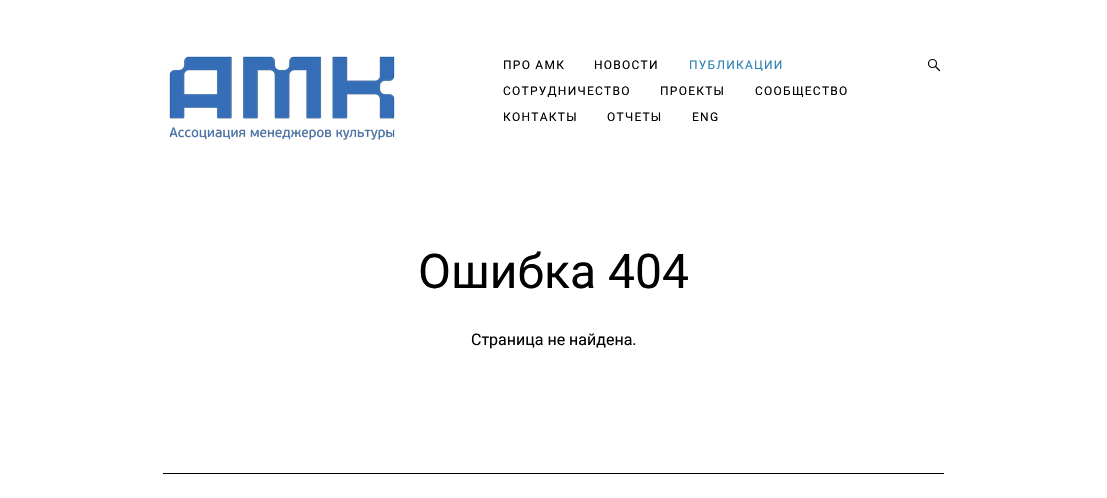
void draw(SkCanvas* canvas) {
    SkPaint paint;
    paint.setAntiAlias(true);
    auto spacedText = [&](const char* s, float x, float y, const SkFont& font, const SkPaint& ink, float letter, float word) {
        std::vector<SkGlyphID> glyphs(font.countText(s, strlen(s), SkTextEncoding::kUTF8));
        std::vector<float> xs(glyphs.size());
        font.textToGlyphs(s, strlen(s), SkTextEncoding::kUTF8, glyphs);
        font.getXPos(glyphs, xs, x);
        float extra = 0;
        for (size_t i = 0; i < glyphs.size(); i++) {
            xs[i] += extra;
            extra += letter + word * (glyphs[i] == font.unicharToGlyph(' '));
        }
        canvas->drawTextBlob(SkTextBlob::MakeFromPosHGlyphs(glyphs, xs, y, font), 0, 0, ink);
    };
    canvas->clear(0xFFFFFFFF);
    canvas->drawImageRect(SkImages::DeferredFromEncodedData(SkData::MakeFromFileName("img1.png")), SkRect::MakeXYWH(169, 56, 226, 84), SkSamplingOptions());
    SkFont font1(fontMgr->matchFamilyStyle("Roboto", SkFontStyle::Normal()), 12);
    font1.setSubpixel(true);
    paint.setColor(0xFF000000);
    spacedText("ПРО АМК", 503, 69, font1, paint, 1.25f, 0);
    spacedText("НОВОСТИ", 594, 69, font1, paint, 1.25f, 0);
    paint.setColor(0xFF2E82B3);
    spacedText("ПУБЛИКАЦИИ", 689, 69, font1, paint, 1.25f, 0);
    paint.setColor(0xFF000000);
    spacedText("СОТРУДНИЧЕСТВО", 503, 95, font1, paint, 1.25f, 0);
    spacedText("ПРОЕКТЫ", 660, 95, font1, paint, 1.25f, 0);
    spacedText("СООБЩЕСТВО", 755, 95, font1, paint, 1.25f, 0);
    spacedText("КОНТАКТЫ", 503, 121, font1, paint, 1.25f, 0);
    spacedText("ОТЧЕТЫ", 607, 121, font1, paint, 1.25f, 0);
    spacedText("ENG", 692, 121, font1, paint, 1.25f, 0);
    paint.setStyle(SkPaint::kStroke_Style);
    paint.setStrokeWidth(1.2f);
    canvas->drawCircle(932.5f, 63.5f, 4, paint);
    paint.setStrokeCap(SkPaint::kRound_Cap);
    paint.setStrokeJoin(SkPaint::kRound_Join);
    canvas->drawPath(SkPathBuilder().moveTo(935.5f, 66.5f).lineTo(939.5f, 70.5f).detach(), paint);
    SkFont font2(fontMgr->matchFamilyStyle("Roboto", SkFontStyle::Normal()), 48);
    font2.setSubpixel(true);
    paint.setStyle(SkPaint::kFill_Style);
    canvas->drawString("Ошибка 404", 418, 288, font2, paint);
    SkFont font3(fontMgr->matchFamilyStyle("Roboto", SkFontStyle::Normal()), 16);
    font3.setSubpixel(true);
    canvas->drawString("Страница не найдена.", 471, 345, font3, paint);
    canvas->drawRect(SkRect::MakeXYWH(163, 473, 781, 1), paint);
}
